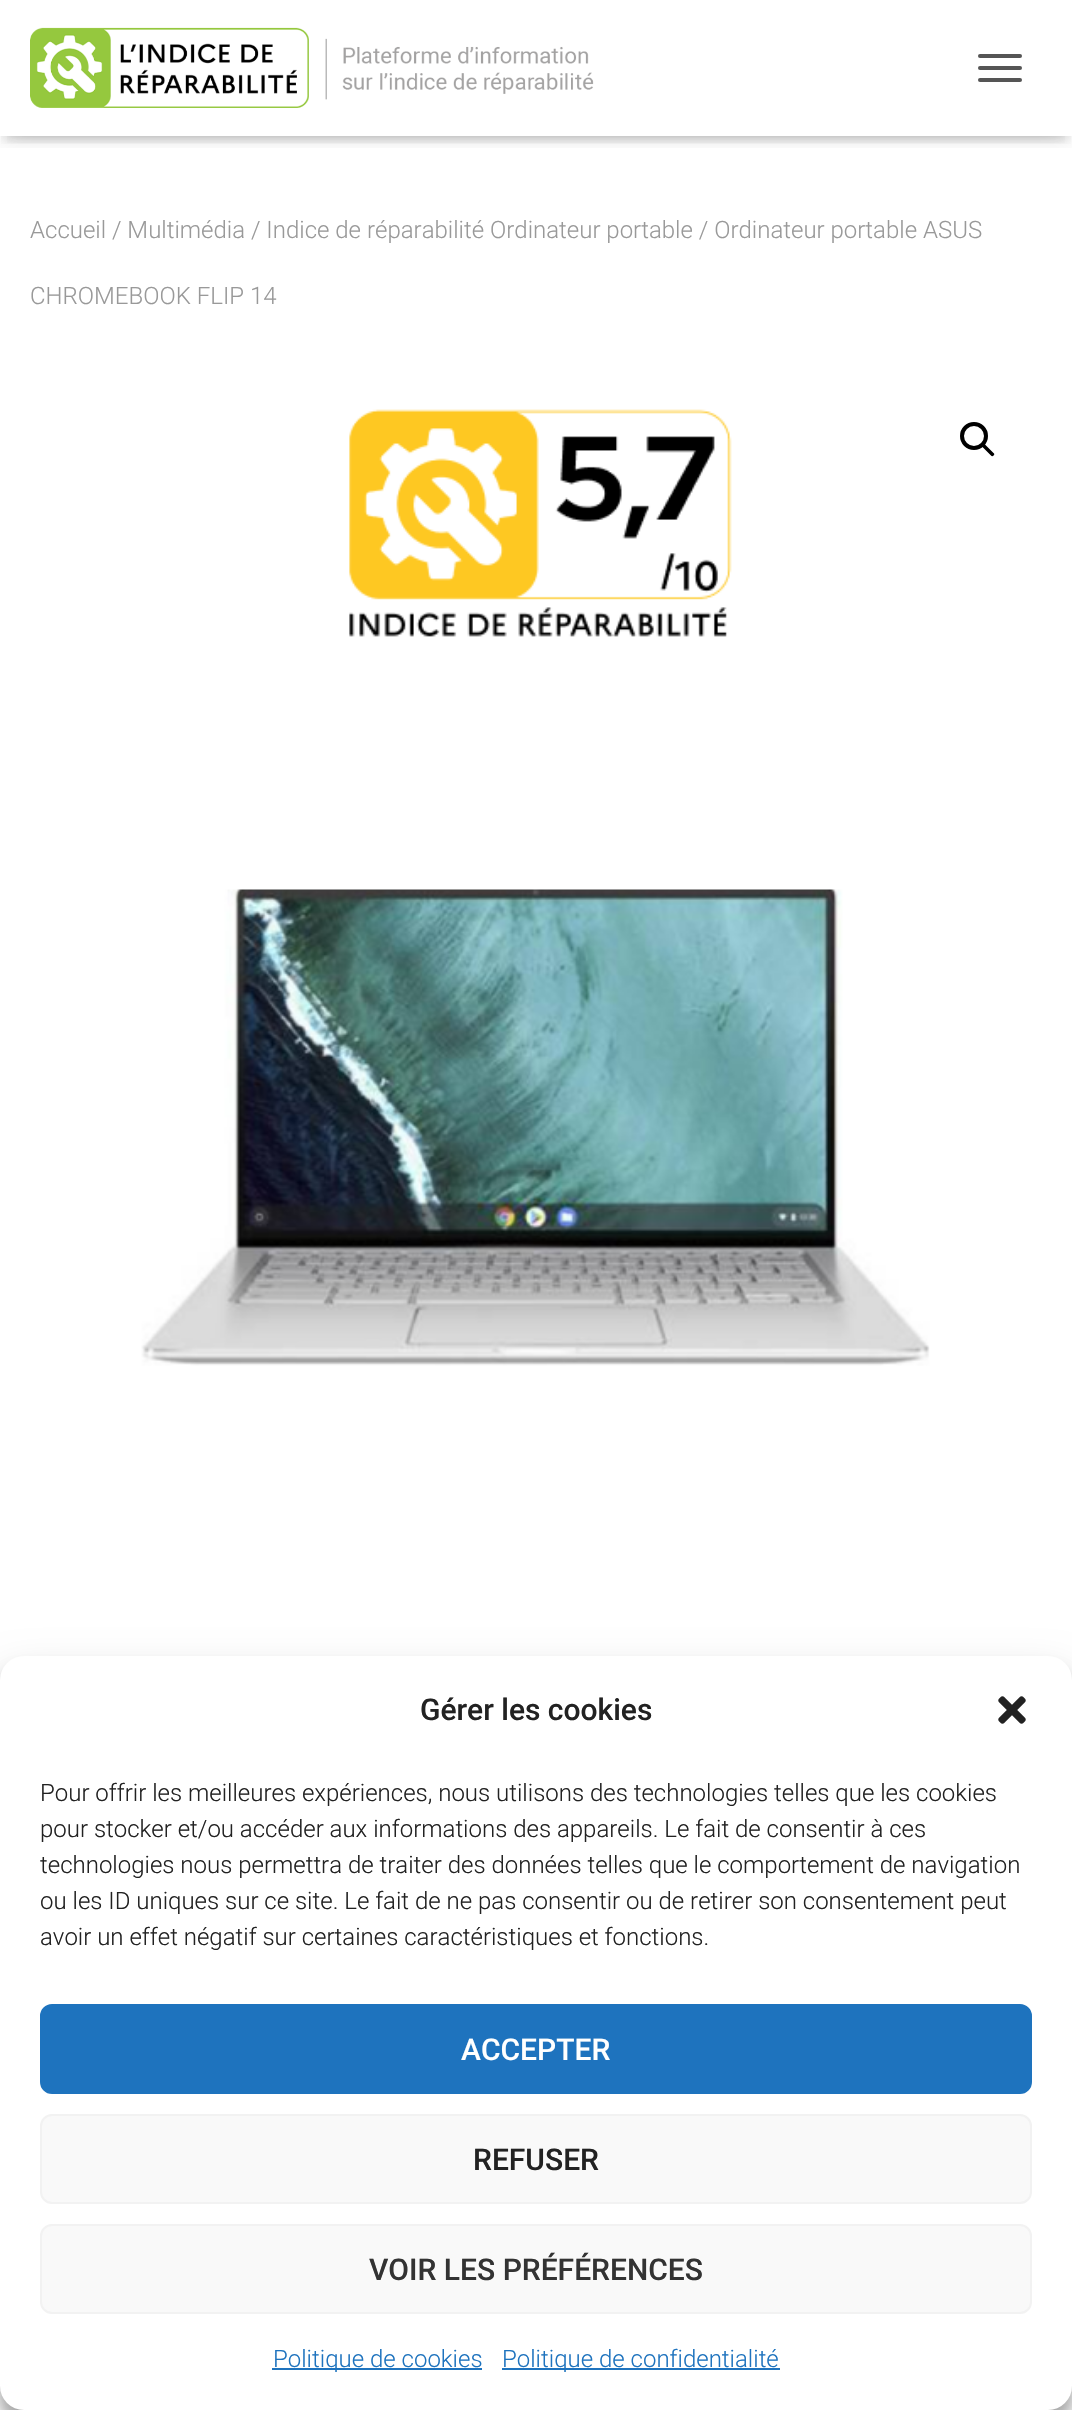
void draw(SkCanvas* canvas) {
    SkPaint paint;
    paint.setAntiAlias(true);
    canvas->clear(0xFFFFFFFF);
    canvas->save();
    canvas->clipRect(SkRect::MakeXYWH(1, 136, 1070, 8));
    paint.setColor(0x1A000000);
    paint.setMaskFilter(SkMaskFilter::MakeBlur(kNormal_SkBlurStyle, 5));
    canvas->drawRect(SkRect::MakeXYWH(4, 12, 1064, 128), paint);
    paint.setMaskFilter(nullptr);
    canvas->restore();
    canvas->save();
    canvas->clipRect(SkRect::MakeXYWH(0, 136, 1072, 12));
    paint.setColor(0x1F000000);
    paint.setMaskFilter(SkMaskFilter::MakeBlur(kNormal_SkBlurStyle, 10));
    canvas->drawRect(SkRect::MakeXYWH(0, 2, 1072, 136), paint);
    paint.setMaskFilter(nullptr);
    canvas->restore();
    canvas->save();
    canvas->clipRect(SkRect::MakeXYWH(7, 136, 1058, 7));
    paint.setColor(0x6B000000);
    paint.setMaskFilter(SkMaskFilter::MakeBlur(kNormal_SkBlurStyle, 10));
    canvas->drawRect(SkRect::MakeXYWH(12, 14, 1048, 112), paint);
    paint.setMaskFilter(nullptr);
    canvas->restore();
    canvas->drawImageRect(SkImages::DeferredFromEncodedData(SkData::MakeFromFileName("img1.png")), SkRect::MakeXYWH(30, 27, 564, 81), SkSamplingOptions());
    paint.setColor(0xFF555555);
    canvas->drawRoundRect(SkRect::MakeXYWH(978, 54, 44, 4), 2, 2, paint);
    canvas->drawRoundRect(SkRect::MakeXYWH(978, 66, 44, 4), 2, 2, paint);
    canvas->drawRoundRect(SkRect::MakeXYWH(978, 78, 44, 4), 2, 2, paint);
    SkFont font1(fontMgr->matchFamilyStyle("Roboto", SkFontStyle(300, SkFontStyle::kNormal_Width, SkFontStyle::kUpright_Slant)), 24);
    font1.setSubpixel(true);
    paint.setColor(0xFF999999);
    canvas->drawString("Accueil / Multimédia / Indice de réparabilité Ordinateur portable / Ordinateur portable ASUS", 30, 238, font1, paint);
    canvas->drawString("CHROMEBOOK FLIP 14", 30, 304, font1, paint);
    canvas->drawImageRect(SkImages::DeferredFromEncodedData(SkData::MakeFromFileName("img2.png")), SkRect::MakeXYWH(141, 409, 789, 957), SkSamplingOptions());
    paint.setStyle(SkPaint::kStroke_Style);
    paint.setStrokeWidth(4);
    paint.setColor(0xFF000000);
    canvas->drawCircle(974, 436, 12, paint);
    paint.setStyle(SkPaint::kFill_Style);
    canvas->drawPath(SkPathBuilder().moveTo(982.5f, 444.5f).cubicTo(983, 443.5f, 984.5f, 443.5f, 985, 444.5f).lineTo(993.5f, 453).cubicTo(994.5f, 453.5f, 994.5f, 455, 993.5f, 455.5f).cubicTo(993, 456.5f, 991.5f, 456.5f, 991, 455.5f).lineTo(982.5f, 447).cubicTo(981.5f, 446.5f, 981.5f, 445, 982.5f, 444.5f).close().detach(), paint);
    paint.setColor(0x3B000000);
    paint.setMaskFilter(SkMaskFilter::MakeBlur(kNormal_SkBlurStyle, 6));
    canvas->drawRoundRect(SkRect::MakeXYWH(0, 1668, 1072, 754), 24, 24, paint);
    paint.setMaskFilter(nullptr);
    paint.setColor(0x30000000);
    paint.setMaskFilter(SkMaskFilter::MakeBlur(kNormal_SkBlurStyle, 20));
    canvas->drawRoundRect(SkRect::MakeXYWH(0, 1676, 1072, 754), 24, 24, paint);
    paint.setMaskFilter(nullptr);
    paint.setColor(0xFFFFFFFF);
    canvas->drawRoundRect(SkRect::MakeXYWH(0, 1656, 1072, 754), 24, 24, paint);
    SkFont font2(fontMgr->matchFamilyStyle("Roboto", SkFontStyle(500, SkFontStyle::kNormal_Width, SkFontStyle::kUpright_Slant)), 30);
    font2.setSubpixel(true);
    paint.setColor(0xFF222222);
    canvas->drawString("Gérer les cookies", 420, 1720, font2, paint);
    canvas->drawImageRect(SkImages::DeferredFromEncodedData(SkData::MakeFromFileName("img3.png")), SkRect::MakeXYWH(998, 1696, 28, 28), SkSamplingOptions());
    canvas->drawString("Pour offrir les meilleures expériences, nous utilisons des technologies telles que les cookies", 40, 1801, font1, paint);
    canvas->drawString("pour stocker et/ou accéder aux informations des appareils. Le fait de consentir à ces", 40, 1837, font1, paint);
    canvas->drawString("technologies nous permettra de traiter des données telles que le comportement de navigation", 40, 1873, font1, paint);
    canvas->drawString("ou les ID uniques sur ce site. Le fait de ne pas consentir ou de retirer son consentement peut", 40, 1909, font1, paint);
    canvas->drawString("avoir un effet négatif sur certaines caractéristiques et fonctions.", 40, 1945, font1, paint);
    paint.setColor(0xFF1E73BE);
    canvas->drawRoundRect(SkRect::MakeXYWH(41, 2005, 990, 88), 11, 11, paint);
    paint.setStyle(SkPaint::kStroke_Style);
    paint.setStrokeWidth(2);
    canvas->drawRoundRect(SkRect::MakeXYWH(41, 2005, 990, 88), 11, 11, paint);
    paint.setStyle(SkPaint::kFill_Style);
    paint.setColor(0xFFFFFFFF);
    canvas->drawString("ACCEPTER", 461, 2060, font2, paint);
    paint.setColor(0xFFF9F9F9);
    canvas->drawRoundRect(SkRect::MakeXYWH(41, 2115, 990, 88), 11, 11, paint);
    paint.setStyle(SkPaint::kStroke_Style);
    paint.setColor(0xFFF2F2F2);
    canvas->drawRoundRect(SkRect::MakeXYWH(41, 2115, 990, 88), 11, 11, paint);
    paint.setStyle(SkPaint::kFill_Style);
    paint.setColor(0xFF222222);
    canvas->drawString("REFUSER", 473, 2170, font2, paint);
    paint.setColor(0xFFF9F9F9);
    canvas->drawRoundRect(SkRect::MakeXYWH(41, 2225, 990, 88), 11, 11, paint);
    paint.setStyle(SkPaint::kStroke_Style);
    paint.setColor(0xFFF2F2F2);
    canvas->drawRoundRect(SkRect::MakeXYWH(41, 2225, 990, 88), 11, 11, paint);
    paint.setStyle(SkPaint::kFill_Style);
    paint.setColor(0xFF333333);
    canvas->drawString("VOIR LES PRÉFÉRENCES", 369, 2280, font2, paint);
    paint.setColor(0xFF1E73BE);
    canvas->drawRect(SkRect::MakeXYWH(272, 2368, 210, 2), paint);
    canvas->drawString("Politique de cookies", 273, 2367, font1, paint);
    canvas->drawRect(SkRect::MakeXYWH(502, 2368, 278, 2), paint);
    canvas->drawString("Politique de confidentialité", 502, 2367, font1, paint);
}
